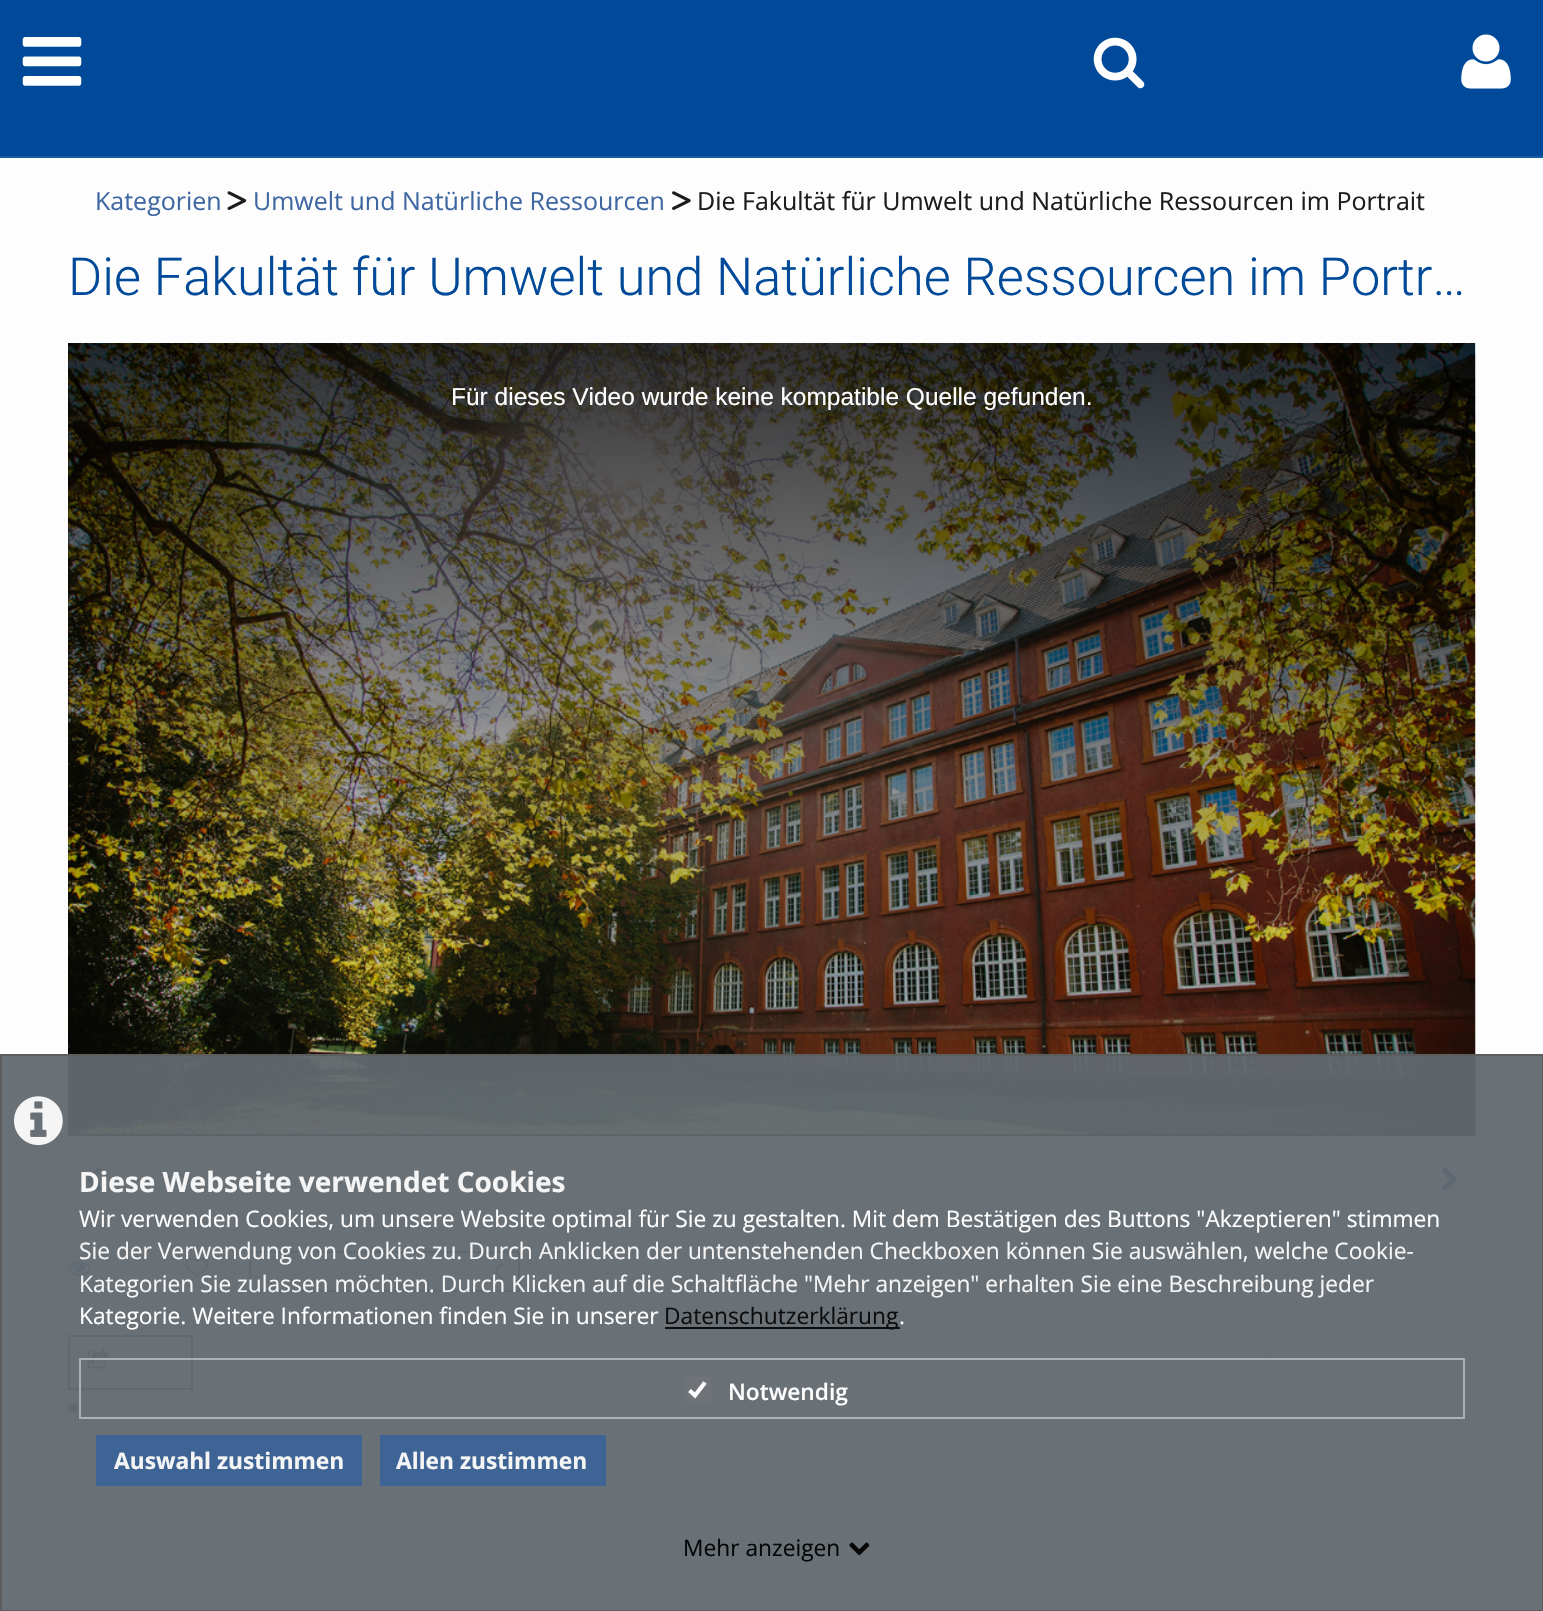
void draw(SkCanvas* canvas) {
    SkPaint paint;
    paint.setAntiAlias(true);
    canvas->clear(0xFFFDFDFD);
    paint.setColor(0xFF004A99);
    canvas->drawRect(SkRect::MakeXYWH(0, 0, 1543, 156), paint);
    paint.setColor(0xFF1A5CA3);
    canvas->drawRect(SkRect::MakeXYWH(0, 156, 1543, 2), paint);
    canvas->drawImageRect(SkImages::DeferredFromEncodedData(SkData::MakeFromFileName("img1.png")), SkRect::MakeXYWH(22, 37, 60, 49), SkSamplingOptions());
    canvas->drawImageRect(SkImages::DeferredFromEncodedData(SkData::MakeFromFileName("img2.png")), SkRect::MakeXYWH(1093, 37, 52, 52), SkSamplingOptions());
    canvas->drawImageRect(SkImages::DeferredFromEncodedData(SkData::MakeFromFileName("img3.png")), SkRect::MakeXYWH(1461, 34, 50, 55), SkSamplingOptions());
    SkFont font1(fontMgr->matchFamilyStyle("Open Sans", SkFontStyle::Normal()), 25);
    font1.setSubpixel(true);
    paint.setColor(0xFF3F68A2);
    canvas->drawString("Kategorien", 95, 210, font1, paint);
    canvas->drawImageRect(SkImages::DeferredFromEncodedData(SkData::MakeFromFileName("img4.png")), SkRect::MakeXYWH(227, 191, 20, 19), SkSamplingOptions());
    canvas->drawString("Umwelt und Natürliche Ressourcen", 253, 210, font1, paint);
    canvas->drawImageRect(SkImages::DeferredFromEncodedData(SkData::MakeFromFileName("img5.png")), SkRect::MakeXYWH(672, 191, 19, 19), SkSamplingOptions());
    paint.setColor(0xFF1A1C1E);
    canvas->drawString("Die Fakultät für Umwelt und Natürliche Ressourcen im Portrait", 697, 210, font1, paint);
    SkFont font2(fontMgr->matchFamilyStyle("Roboto", SkFontStyle(300, SkFontStyle::kNormal_Width, SkFontStyle::kUpright_Slant)), 52.3f);
    font2.setSubpixel(true);
    paint.setColor(0xFF004A99);
    canvas->drawString("Die Fakultät für Umwelt und Natürliche Ressourcen im Portr…", 68, 295, font2, paint);
    paint.setColor(0xFF000000);
    canvas->drawRect(SkRect::MakeXYWH(68, 343, 1407, 793), paint);
    canvas->drawImageRect(SkImages::DeferredFromEncodedData(SkData::MakeFromFileName("img6.png")), SkRect::MakeXYWH(68, 343, 1408, 791), SkSamplingOptions());
    {
        const SkColor colors[] = {0xCC000000, 0x00000000};
        const float stops[] = {0, 1};
        const SkPoint ends[] = {{772, 343}, {772, 1136}};
        paint.setShader(SkGradientShader::MakeLinear(ends, colors, stops, 2, SkTileMode::kClamp));
        paint.setAlpha(255);
    }
    canvas->drawRect(SkRect::MakeXYWH(68, 343, 1407, 772), paint);
    SkFont font3(fontMgr->matchFamilyStyle("Liberation Sans", SkFontStyle::Normal()), 24.5f);
    font3.setSubpixel(true);
    paint.setShader(nullptr);
    paint.setColor(0xFFFFFFFF);
    canvas->drawString("Für dieses Video wurde keine kompatible Quelle gefunden.", 451, 405, font3, paint);
    canvas->drawImageRect(SkImages::DeferredFromEncodedData(SkData::MakeFromFileName("img7.png")), SkRect::MakeXYWH(86, 1167, 16, 25), SkSamplingOptions());
    canvas->drawImageRect(SkImages::DeferredFromEncodedData(SkData::MakeFromFileName("img8.png")), SkRect::MakeXYWH(1442, 1167, 15, 25), SkSamplingOptions());
    canvas->drawImageRect(SkImages::DeferredFromEncodedData(SkData::MakeFromFileName("img9.png")), SkRect::MakeXYWH(68, 1261, 23, 15), SkSamplingOptions());
    canvas->drawImageRect(SkImages::DeferredFromEncodedData(SkData::MakeFromFileName("img10.png")), SkRect::MakeXYWH(185, 1257, 24, 21), SkSamplingOptions());
    paint.setStyle(SkPaint::kStroke_Style);
    paint.setStrokeWidth(2);
    paint.setColor(0xFF475D7B);
    canvas->drawRect(SkRect::MakeXYWH(250, 1252, 269, 39), paint);
    paint.setStyle(SkPaint::kFill_Style);
    canvas->drawPath(SkPathBuilder().moveTo(496, 1271.5f).lineTo(503, 1278.5f).lineTo(501.5f, 1279.5f).lineTo(494.5f, 1272.5f).close().detach(), paint);
    canvas->drawPath(SkPathBuilder().moveTo(501.5f, 1263.5f).lineTo(503, 1264.5f).lineTo(496, 1271.5f).lineTo(494.5f, 1270).close().detach(), paint);
    paint.setStyle(SkPaint::kStroke_Style);
    canvas->drawRect(SkRect::MakeXYWH(69, 1336, 123, 53), paint);
    canvas->drawImageRect(SkImages::DeferredFromEncodedData(SkData::MakeFromFileName("img11.png")), SkRect::MakeXYWH(87, 1349, 22, 20), SkSamplingOptions());
    canvas->drawImageRect(SkImages::DeferredFromEncodedData(SkData::MakeFromFileName("img12.png")), SkRect::MakeXYWH(68, 1403, 10, 10), SkSamplingOptions());
    paint.setStyle(SkPaint::kFill_Style);
    paint.setColor(0xFFF2F3F1);
    canvas->drawRect(SkRect::MakeXYWH(1266, 1252, 208, 114), paint);
    paint.setStyle(SkPaint::kStroke_Style);
    paint.setColor(0xFFDFE5EB);
    canvas->drawRect(SkRect::MakeXYWH(1266, 1252, 208, 114), paint);
    paint.setStyle(SkPaint::kFill_Style);
    paint.setColor(0xF261686F);
    canvas->drawRect(SkRect::MakeXYWH(0, 1054, 1543, 557), paint);
    paint.setStyle(SkPaint::kStroke_Style);
    paint.setColor(0xF25C5C5C);
    canvas->drawRect(SkRect::MakeXYWH(1, 1055, 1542, 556), paint);
    canvas->drawImageRect(SkImages::DeferredFromEncodedData(SkData::MakeFromFileName("img13.png")), SkRect::MakeXYWH(14, 1096, 49, 50), SkSamplingOptions());
    SkFont font4(fontMgr->matchFamilyStyle("Open Sans", SkFontStyle::Bold()), 28);
    font4.setSubpixel(true);
    paint.setStyle(SkPaint::kFill_Style);
    paint.setColor(0xFFF5F5F5);
    canvas->drawString("Diese Webseite verwendet Cookies", 79, 1192, font4, paint);
    SkFont font5(fontMgr->matchFamilyStyle("Open Sans", SkFontStyle::Normal()), 22.75f);
    font5.setSubpixel(true);
    paint.setColor(0xFFFFFFFF);
    canvas->drawString("Wir verwenden Cookies, um unsere Website optimal für Sie zu gestalten. Mit dem Bestätigen des Buttons \"Akzeptieren\" stimmen", 79, 1227, font5, paint);
    paint.setColor(0xFFF5F5F5);
    canvas->drawString("Sie der Verwendung von Cookies zu. Durch Anklicken der untenstehenden Checkboxen können Sie auswählen, welche Cookie-", 79, 1259, font5, paint);
    canvas->drawString("Kategorien Sie zulassen möchten. Durch Klicken auf die Schaltfläche \"Mehr anzeigen\" erhalten Sie eine Beschreibung jeder", 79, 1292, font5, paint);
    paint.setColor(0xFFFFFFFF);
    canvas->drawString("Kategorie. Weitere Informationen finden Sie in unserer", 79, 1324, font5, paint);
    paint.setColor(0xFF0D0D0D);
    canvas->drawRect(SkRect::MakeXYWH(665, 1327, 235, 2), paint);
    canvas->drawString("Datenschutzerklärung", 664, 1324, font5, paint);
    paint.setColor(0xFFFFFFFF);
    canvas->drawString(".", 899, 1324, font5, paint);
    paint.setStyle(SkPaint::kStroke_Style);
    paint.setColor(0xF2B0B3B8);
    canvas->drawRect(SkRect::MakeXYWH(80, 1359, 1384, 59), paint);
    paint.setStyle(SkPaint::kFill_Style);
    paint.setColor(0xFF6F7378);
    canvas->drawRoundRect(SkRect::MakeXYWH(684, 1377, 27, 27), 4, 4, paint);
    paint.setStyle(SkPaint::kStroke_Style);
    paint.setStrokeWidth(4.2f);
    paint.setColor(0xFFFFFFFF);
    canvas->drawPath(SkPathBuilder().moveTo(689.5f, 1390.5f).lineTo(695, 1395.5f).lineTo(705, 1382.5f).detach(), paint);
    SkFont font6(fontMgr->matchFamilyStyle("Open Sans", SkFontStyle(600, SkFontStyle::kNormal_Width, SkFontStyle::kUpright_Slant)), 22.75f);
    font6.setSubpixel(true);
    paint.setStyle(SkPaint::kFill_Style);
    canvas->drawString("Notwendig", 728, 1400, font6, paint);
    paint.setColor(0xF23B6297);
    canvas->drawRect(SkRect::MakeXYWH(96, 1435, 266, 51), paint);
    SkFont font7(fontMgr->matchFamilyStyle("Open Sans", SkFontStyle::Bold()), 22.75f);
    font7.setSubpixel(true);
    paint.setColor(0xFFF5F5F5);
    canvas->drawString("Auswahl zustimmen", 114, 1469, font7, paint);
    paint.setColor(0xF23B6297);
    canvas->drawRect(SkRect::MakeXYWH(380, 1435, 226, 51), paint);
    paint.setColor(0xFFF5F5F5);
    canvas->drawString("Allen zustimmen", 396, 1469, font7, paint);
    paint.setColor(0xFF050606);
    canvas->drawString("Mehr anzeigen", 683, 1556, font5, paint);
    canvas->drawImageRect(SkImages::DeferredFromEncodedData(SkData::MakeFromFileName("img14.png")), SkRect::MakeXYWH(849, 1542, 21, 13), SkSamplingOptions());
}
